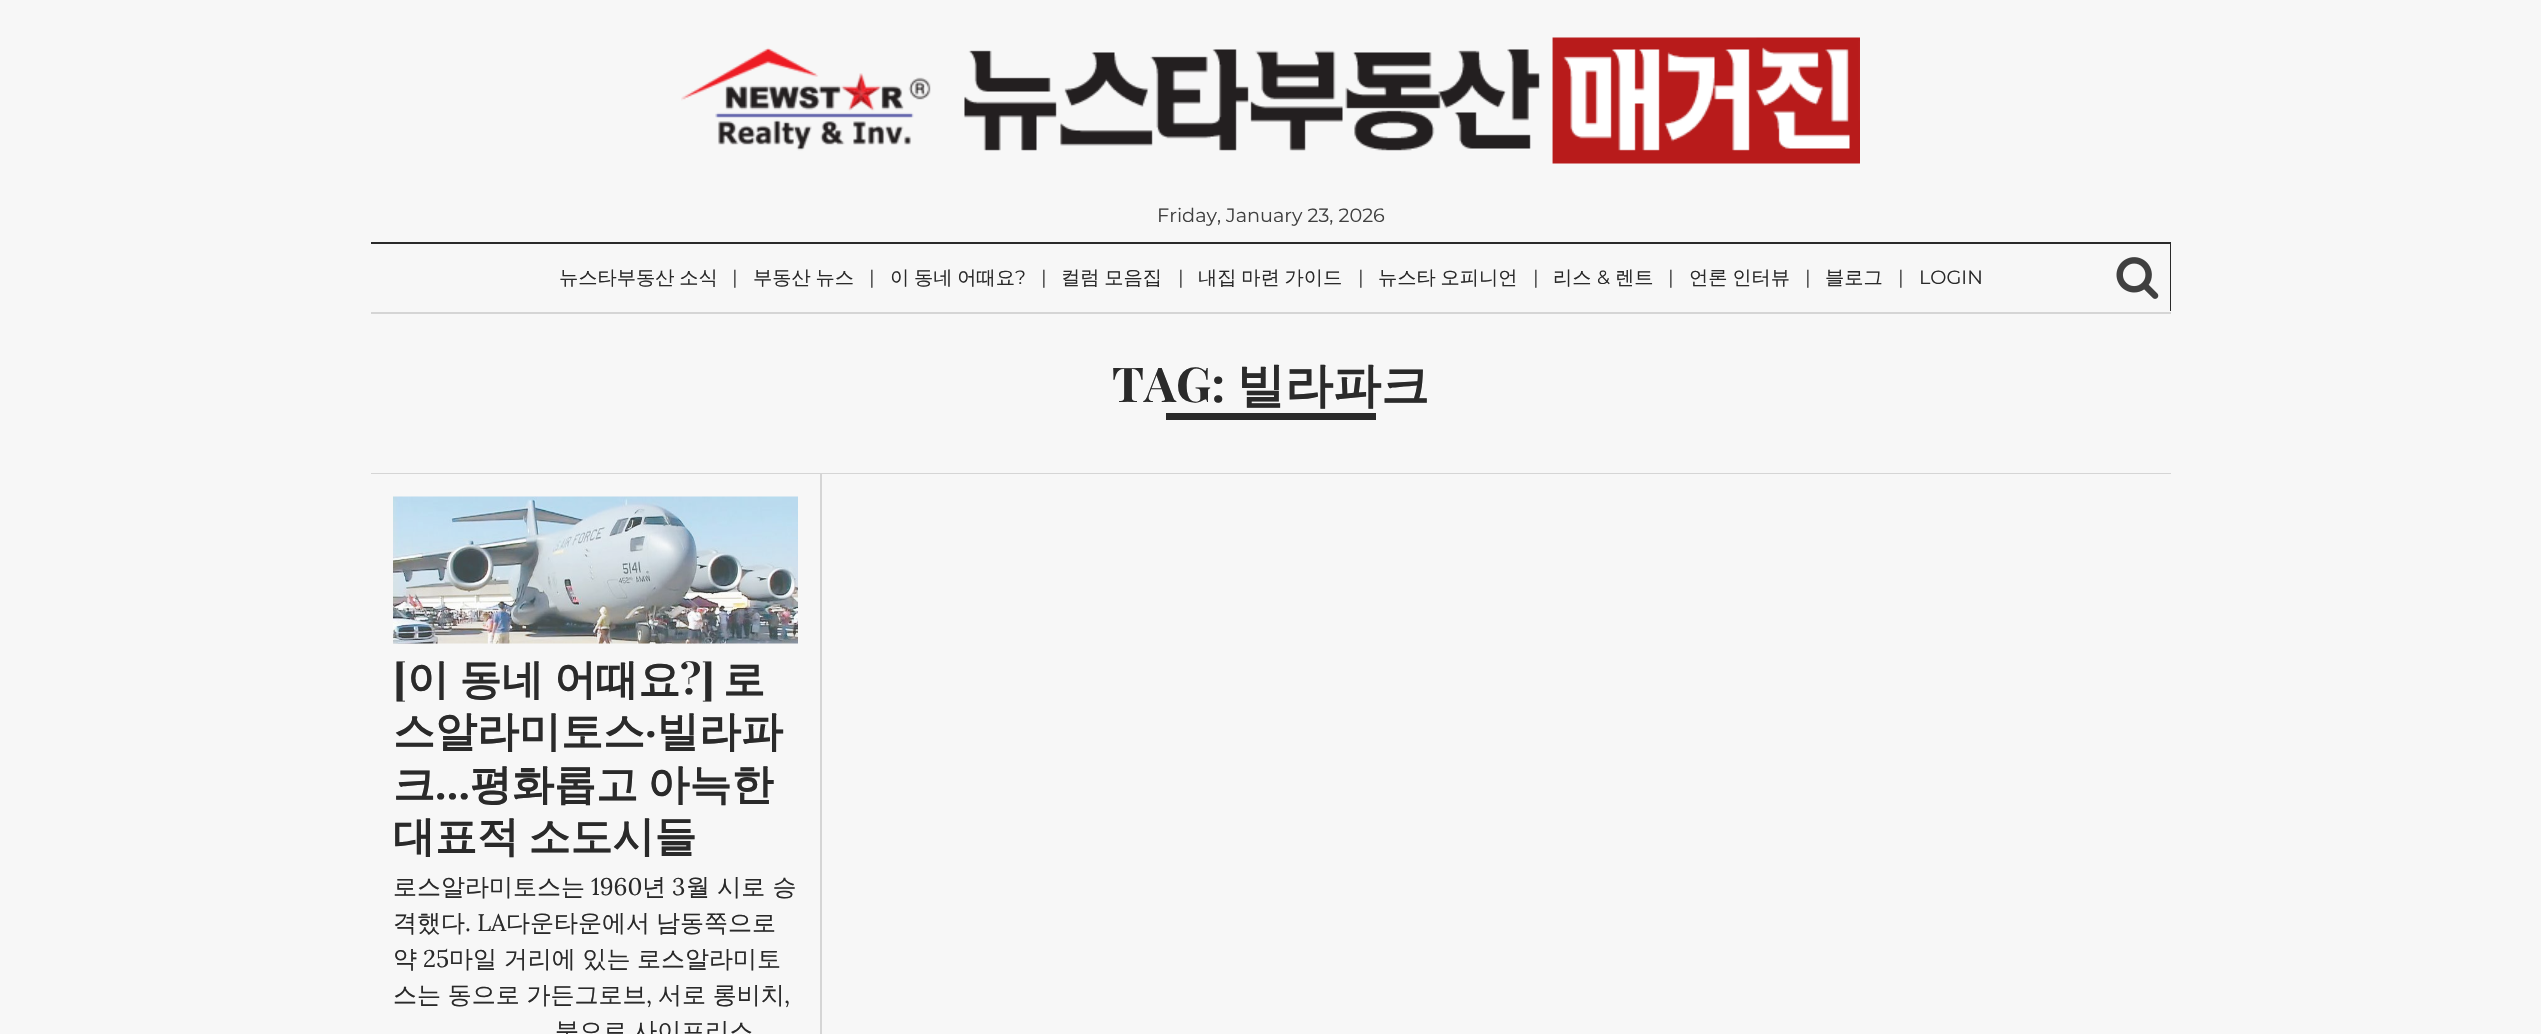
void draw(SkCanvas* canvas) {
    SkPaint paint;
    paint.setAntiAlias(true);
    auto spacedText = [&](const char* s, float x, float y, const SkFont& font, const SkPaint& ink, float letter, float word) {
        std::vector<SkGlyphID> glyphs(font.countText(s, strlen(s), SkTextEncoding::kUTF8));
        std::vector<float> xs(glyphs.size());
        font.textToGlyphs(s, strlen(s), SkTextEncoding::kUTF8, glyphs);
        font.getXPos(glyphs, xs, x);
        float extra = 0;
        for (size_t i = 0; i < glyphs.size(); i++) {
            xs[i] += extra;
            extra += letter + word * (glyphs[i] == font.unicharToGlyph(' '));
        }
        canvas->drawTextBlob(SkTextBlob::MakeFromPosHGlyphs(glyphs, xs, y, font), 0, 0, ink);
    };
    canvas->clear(0xFFF7F7F7);
    canvas->drawImageRect(SkImages::DeferredFromEncodedData(SkData::MakeFromFileName("img1.png")), SkRect::MakeXYWH(681, 37, 1179, 127), SkSamplingOptions());
    SkFont font1(fontMgr->matchFamilyStyle("Montserrat", SkFontStyle(100, SkFontStyle::kNormal_Width, SkFontStyle::kUpright_Slant)), 19.25f);
    font1.setSubpixel(true);
    paint.setColor(0xFF404040);
    canvas->drawString("Friday, January 23, 2026", 1157, 222, font1, paint);
    paint.setColor(0xFF2A2A2A);
    canvas->drawPath(SkPathBuilder().moveTo(371, 242).lineTo(371, 244).lineTo(2170, 244).lineTo(2170, 311).lineTo(2171, 311).lineTo(2171, 242).close().detach(), paint);
    paint.setColor(0xFFD5D5D5);
    canvas->drawRect(SkRect::MakeXYWH(371, 312, 1800, 2), paint);
    SkFont font2(fontMgr->matchFamilyStyle("WenQuanYi Zen Hei", SkFontStyle(500, SkFontStyle::kNormal_Width, SkFontStyle::kUpright_Slant)), 19.25f);
    font2.setSubpixel(true);
    paint.setColor(0xFF2A2A2A);
    spacedText("뉴스타부동산 소식", 559, 284, font2, paint, 0, -1);
    paint.setColor(0xFF404040);
    canvas->drawString("|", 732, 284, font1, paint);
    paint.setColor(0xFF2A2A2A);
    spacedText("부동산 뉴스", 753, 284, font2, paint, 0, -1);
    paint.setColor(0xFF404040);
    canvas->drawString("|", 869, 284, font1, paint);
    paint.setColor(0xFF2A2A2A);
    spacedText("이 동네 어때요", 890, 284, font2, paint, 0, -1);
    canvas->drawString("?", 1015, 284, font1, paint);
    paint.setColor(0xFF404040);
    canvas->drawString("|", 1041, 284, font1, paint);
    paint.setColor(0xFF2A2A2A);
    spacedText("컬럼 모음집", 1061, 284, font2, paint, 0, -1);
    paint.setColor(0xFF404040);
    canvas->drawString("|", 1178, 284, font1, paint);
    paint.setColor(0xFF2A2A2A);
    spacedText("내집 마련 가이드", 1198, 284, font2, paint, 0, -1);
    paint.setColor(0xFF404040);
    canvas->drawString("|", 1358, 284, font1, paint);
    paint.setColor(0xFF2A2A2A);
    spacedText("뉴스타 오피니언", 1378, 284, font2, paint, 0, -1);
    paint.setColor(0xFF404040);
    canvas->drawString("|", 1533, 284, font1, paint);
    paint.setColor(0xFF2A2A2A);
    canvas->drawString("리스", 1553, 284, font2, paint);
    canvas->drawString("&", 1597, 284, font1, paint);
    canvas->drawString("렌트", 1615, 284, font2, paint);
    paint.setColor(0xFF404040);
    canvas->drawString("|", 1668, 284, font1, paint);
    paint.setColor(0xFF2A2A2A);
    spacedText("언론 인터뷰", 1689, 284, font2, paint, 0, -1);
    paint.setColor(0xFF404040);
    canvas->drawString("|", 1805, 284, font1, paint);
    paint.setColor(0xFF2A2A2A);
    canvas->drawString("블로그", 1825, 284, font2, paint);
    paint.setColor(0xFF404040);
    canvas->drawString("|", 1898, 284, font1, paint);
    paint.setColor(0xFF2A2A2A);
    canvas->drawString("LOGIN", 1919, 284, font1, paint);
    canvas->drawImageRect(SkImages::DeferredFromEncodedData(SkData::MakeFromFileName("img2.png")), SkRect::MakeXYWH(2116, 257, 43, 42), SkSamplingOptions());
    paint.setColor(0xFFD5D5D5);
    canvas->drawRect(SkRect::MakeXYWH(371, 473, 1800, 1), paint);
    SkFont font3(fontMgr->matchFamilyStyle("Playfair Display", SkFontStyle::Bold()), 48);
    font3.setSubpixel(true);
    paint.setColor(0xFF2A2A2A);
    canvas->drawString("TAG:", 1112, 402, font3, paint);
    SkFont font4(fontMgr->matchFamilyStyle("WenQuanYi Zen Hei", SkFontStyle::Bold()), 48);
    font4.setSubpixel(true);
    canvas->drawString("빌라파크", 1237, 402, font4, paint);
    canvas->drawRect(SkRect::MakeXYWH(1166, 413, 210, 7), paint);
    paint.setColor(0xFFD5D5D5);
    canvas->drawRect(SkRect::MakeXYWH(820, 474, 2, 560), paint);
    canvas->drawImageRect(SkImages::DeferredFromEncodedData(SkData::MakeFromFileName("img3.png")), SkRect::MakeXYWH(393, 496, 405, 148), SkSamplingOptions());
    SkFont font5(fontMgr->matchFamilyStyle("Playfair Display", SkFontStyle::Bold()), 42);
    font5.setSubpixel(true);
    paint.setColor(0xFF2A2A2A);
    canvas->drawString("[", 393, 694, font5, paint);
    SkFont font6(fontMgr->matchFamilyStyle("WenQuanYi Zen Hei", SkFontStyle::Bold()), 42);
    font6.setSubpixel(true);
    spacedText("이 동네 어때요", 407, 694, font6, paint, 0, -2);
    canvas->drawString("?]", 680, 694, font5, paint);
    canvas->drawString("로", 723, 694, font6, paint);
    canvas->drawString("스알라미토스", 393, 746, font6, paint);
    canvas->drawString("·", 645, 746, font5, paint);
    canvas->drawString("빌라파", 657, 746, font6, paint);
    canvas->drawString("크", 393, 799, font6, paint);
    canvas->drawString("…", 435, 799, font5, paint);
    spacedText("평화롭고 아늑한", 470, 799, font6, paint, 0, -3);
    spacedText("대표적 소도시들", 393, 851, font6, paint, 0, -3);
    SkFont font7(fontMgr->matchFamilyStyle("WenQuanYi Zen Hei", SkFontStyle(500, SkFontStyle::kNormal_Width, SkFontStyle::kUpright_Slant)), 24);
    font7.setSubpixel(true);
    canvas->drawString("로스알라미토스는", 393, 895, font7, paint);
    SkFont font8(fontMgr->matchFamilyStyle("Lora", SkFontStyle::Normal()), 24);
    font8.setSubpixel(true);
    canvas->drawString("1960", 591, 895, font8, paint);
    canvas->drawString("년", 642, 895, font7, paint);
    canvas->drawString("3", 672, 895, font8, paint);
    canvas->drawString("월 시로 승", 686, 895, font7, paint);
    canvas->drawString("격했다", 393, 931, font7, paint);
    canvas->drawString(". LA", 465, 931, font8, paint);
    canvas->drawString("다운타운에서", 506, 931, font7, paint);
    canvas->drawString("남동쪽으로", 656, 931, font7, paint);
    canvas->drawString("약", 393, 967, font7, paint);
    canvas->drawString("25", 423, 967, font8, paint);
    spacedText("마일 거리에 있는 로스알라미토", 449, 967, font7, paint, 0, -0.5f);
    spacedText("스는 동으로 가든그로브", 393, 1003, font7, paint, 0, -0.5f);
    canvas->drawString(",", 646, 1003, font8, paint);
    spacedText("서로 롱비치", 658, 1003, font7, paint, 0, -0.5f);
    canvas->drawString(",", 784, 1003, font8, paint);
    spacedText("북으로 사이프리스", 555, 1039, font7, paint, 0, -1);
}
